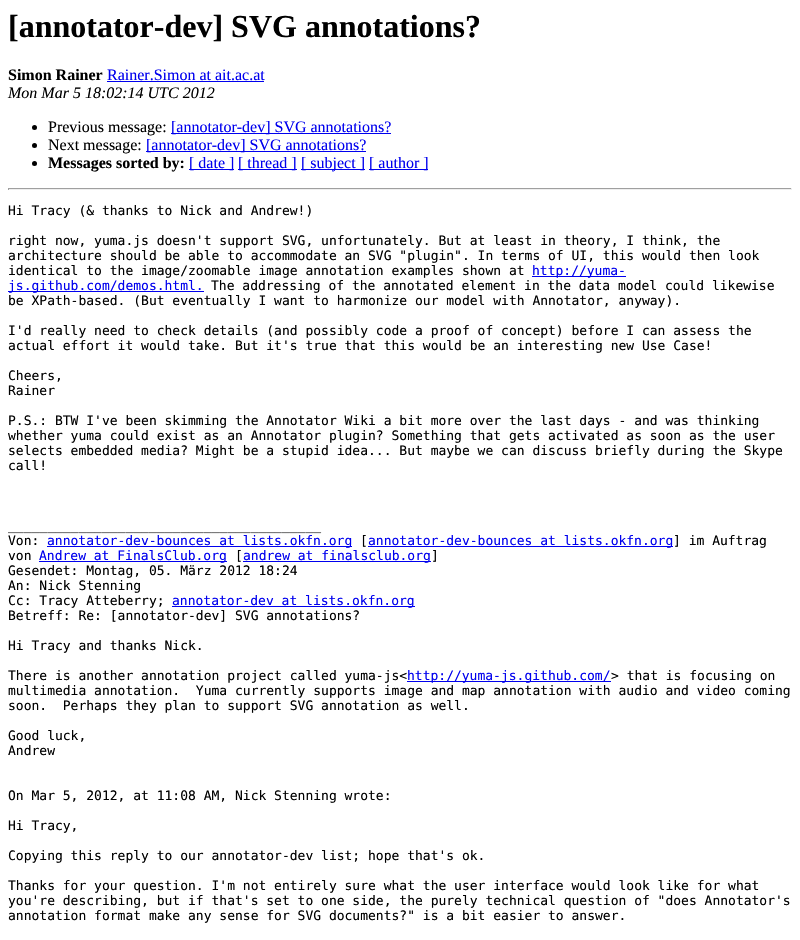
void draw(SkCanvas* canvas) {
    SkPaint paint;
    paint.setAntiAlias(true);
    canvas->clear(0xFFFFFFFF);
    SkFont font1(fontMgr->matchFamilyStyle("Liberation Serif", SkFontStyle::Bold()), 32);
    font1.setSubpixel(true);
    paint.setColor(0xFF000000);
    canvas->drawString("[annotator-dev] SVG annotations?", 8, 37, font1, paint);
    SkFont font2(fontMgr->matchFamilyStyle("Liberation Serif", SkFontStyle::Bold()), 16);
    font2.setSubpixel(true);
    canvas->drawString("Simon Rainer", 8, 80, font2, paint);
    SkFont font3(fontMgr->matchFamilyStyle("Liberation Serif", SkFontStyle::Normal()), 16);
    font3.setSubpixel(true);
    paint.setColor(0xFF0000EE);
    canvas->drawString("Rainer.Simon at ait.ac.at", 107, 80, font3, paint);
    canvas->drawRect(SkRect::MakeXYWH(107, 81, 157, 1), paint);
    SkFont font4(fontMgr->matchFamilyStyle("Liberation Serif", SkFontStyle::Italic()), 16);
    font4.setSubpixel(true);
    paint.setColor(0xFF000000);
    canvas->drawString("Mon Mar 5 18:02:14 UTC 2012", 8, 98, font4, paint);
    canvas->drawCircle(34.5f, 127.5f, 2.5f, paint);
    canvas->drawString("Previous message:", 48, 132, font3, paint);
    paint.setColor(0xFF0000EE);
    canvas->drawRect(SkRect::MakeXYWH(171, 133, 220, 1), paint);
    canvas->drawString("[annotator-dev] SVG annotations?", 171, 132, font3, paint);
    paint.setColor(0xFF000000);
    canvas->drawCircle(34.5f, 145.5f, 2.5f, paint);
    canvas->drawString("Next message:", 48, 150, font3, paint);
    paint.setColor(0xFF0000EE);
    canvas->drawRect(SkRect::MakeXYWH(146, 151, 220, 1), paint);
    canvas->drawString("[annotator-dev] SVG annotations?", 146, 150, font3, paint);
    paint.setColor(0xFF000000);
    canvas->drawCircle(34.5f, 163.5f, 2.5f, paint);
    canvas->drawString("Messages sorted by:", 48, 168, font2, paint);
    paint.setColor(0xFF0000EE);
    canvas->drawRect(SkRect::MakeXYWH(189, 169, 45, 1), paint);
    canvas->drawString("[ date ]", 189, 168, font3, paint);
    canvas->drawRect(SkRect::MakeXYWH(238, 169, 59, 1), paint);
    canvas->drawString("[ thread ]", 238, 168, font3, paint);
    canvas->drawRect(SkRect::MakeXYWH(301, 169, 64, 1), paint);
    canvas->drawString("[ subject ]", 301, 168, font3, paint);
    canvas->drawRect(SkRect::MakeXYWH(369, 169, 59, 1), paint);
    canvas->drawString("[ author ]", 369, 168, font3, paint);
    paint.setColor(0xFF9F9F9F);
    canvas->drawRect(SkRect::MakeXYWH(8, 188, 784, 1), paint);
    paint.setColor(0xFFEEEEEE);
    canvas->drawRect(SkRect::MakeXYWH(791, 188, 1, 2), paint);
    canvas->drawRect(SkRect::MakeXYWH(8, 189, 784, 1), paint);
    paint.setColor(0xFF9F9F9F);
    canvas->drawRect(SkRect::MakeXYWH(8, 188, 1, 2), paint);
    SkFont font5(fontMgr->matchFamilyStyle("DejaVu Sans Mono", SkFontStyle::Normal()), 13);
    font5.setSubpixel(true);
    paint.setColor(0xFF000000);
    canvas->drawString("Hi Tracy (& thanks to Nick and Andrew!)", 8, 215, font5, paint);
    canvas->drawString("right now, yuma.js doesn't support SVG, unfortunately. But at least in theory, I think, the", 8, 245, font5, paint);
    canvas->drawString("architecture should be able to accommodate an SVG \"plugin\". In terms of UI, this would then look", 8, 260, font5, paint);
    canvas->drawString("identical to the image/zoomable image annotation examples shown at", 8, 275, font5, paint);
    paint.setColor(0xFF0000EE);
    canvas->drawRect(SkRect::MakeXYWH(532, 276, 94, 1), paint);
    canvas->drawString("http://yuma-", 532, 275, font5, paint);
    canvas->drawRect(SkRect::MakeXYWH(8, 291, 196, 1), paint);
    canvas->drawString("js.github.com/demos.html.", 8, 290, font5, paint);
    paint.setColor(0xFF000000);
    canvas->drawString("The addressing of the annotated element in the data model could likewise", 211, 290, font5, paint);
    canvas->drawString("be XPath-based. (But eventually I want to harmonize our model with Annotator, anyway).", 8, 305, font5, paint);
    canvas->drawString("I'd really need to check details (and possibly code a proof of concept) before I can assess the", 8, 335, font5, paint);
    canvas->drawString("actual effort it would take. But it's true that this would be an interesting new Use Case!", 8, 350, font5, paint);
    canvas->drawString("Cheers,", 8, 380, font5, paint);
    canvas->drawString("Rainer", 8, 395, font5, paint);
    canvas->drawString("P.S.: BTW I've been skimming the Annotator Wiki a bit more over the last days - and was thinking", 8, 425, font5, paint);
    canvas->drawString("whether yuma could exist as an Annotator plugin? Something that gets activated as soon as the user", 8, 440, font5, paint);
    canvas->drawString("selects embedded media? Might be a stupid idea... But maybe we can discuss briefly during the Skype", 8, 455, font5, paint);
    canvas->drawString("call!", 8, 470, font5, paint);
    canvas->drawString("________________________________________", 8, 530, font5, paint);
    canvas->drawString("Von:", 8, 545, font5, paint);
    paint.setColor(0xFF0000EE);
    canvas->drawRect(SkRect::MakeXYWH(47, 546, 305, 1), paint);
    canvas->drawString("annotator-dev-bounces at lists.okfn.org", 47, 545, font5, paint);
    paint.setColor(0xFF000000);
    canvas->drawString("[", 360, 545, font5, paint);
    paint.setColor(0xFF0000EE);
    canvas->drawRect(SkRect::MakeXYWH(368, 546, 305, 1), paint);
    canvas->drawString("annotator-dev-bounces at lists.okfn.org", 368, 545, font5, paint);
    paint.setColor(0xFF000000);
    canvas->drawString("] im Auftrag", 673, 545, font5, paint);
    canvas->drawString("von", 8, 560, font5, paint);
    paint.setColor(0xFF0000EE);
    canvas->drawRect(SkRect::MakeXYWH(39, 561, 188, 1), paint);
    canvas->drawString("Andrew at FinalsClub.org", 39, 560, font5, paint);
    paint.setColor(0xFF000000);
    canvas->drawString("[", 235, 560, font5, paint);
    paint.setColor(0xFF0000EE);
    canvas->drawRect(SkRect::MakeXYWH(243, 561, 188, 1), paint);
    canvas->drawString("andrew at finalsclub.org", 243, 560, font5, paint);
    paint.setColor(0xFF000000);
    canvas->drawString("]", 431, 560, font5, paint);
    canvas->drawString("Gesendet: Montag, 05. März 2012 18:24", 8, 575, font5, paint);
    canvas->drawString("An: Nick Stenning", 8, 590, font5, paint);
    canvas->drawString("Cc: Tracy Atteberry;", 8, 605, font5, paint);
    paint.setColor(0xFF0000EE);
    canvas->drawRect(SkRect::MakeXYWH(172, 606, 243, 1), paint);
    canvas->drawString("annotator-dev at lists.okfn.org", 172, 605, font5, paint);
    paint.setColor(0xFF000000);
    canvas->drawString("Betreff: Re: [annotator-dev] SVG annotations?", 8, 620, font5, paint);
    canvas->drawString("Hi Tracy and thanks Nick.", 8, 650, font5, paint);
    canvas->drawString("There is another annotation project called yuma-js<", 8, 680, font5, paint);
    paint.setColor(0xFF0000EE);
    canvas->drawRect(SkRect::MakeXYWH(407, 681, 204, 1), paint);
    canvas->drawString("http://yuma-js.github.com/", 407, 680, font5, paint);
    paint.setColor(0xFF000000);
    canvas->drawString("> that is focusing on", 611, 680, font5, paint);
    canvas->drawString("multimedia annotation.  Yuma currently supports image and map annotation with audio and video coming", 8, 695, font5, paint);
    canvas->drawString("soon.  Perhaps they plan to support SVG annotation as well.", 8, 710, font5, paint);
    canvas->drawString("Good luck,", 8, 740, font5, paint);
    canvas->drawString("Andrew", 8, 755, font5, paint);
    canvas->drawString("On Mar 5, 2012, at 11:08 AM, Nick Stenning wrote:", 8, 800, font5, paint);
    canvas->drawString("Hi Tracy,", 8, 830, font5, paint);
    canvas->drawString("Copying this reply to our annotator-dev list; hope that's ok.", 8, 860, font5, paint);
    canvas->drawString("Thanks for your question. I'm not entirely sure what the user interface would look like for what", 8, 890, font5, paint);
    canvas->drawString("you're describing, but if that's set to one side, the purely technical question of \"does Annotator's", 8, 905, font5, paint);
    canvas->drawString("annotation format make any sense for SVG documents?\" is a bit easier to answer.", 8, 920, font5, paint);
}
